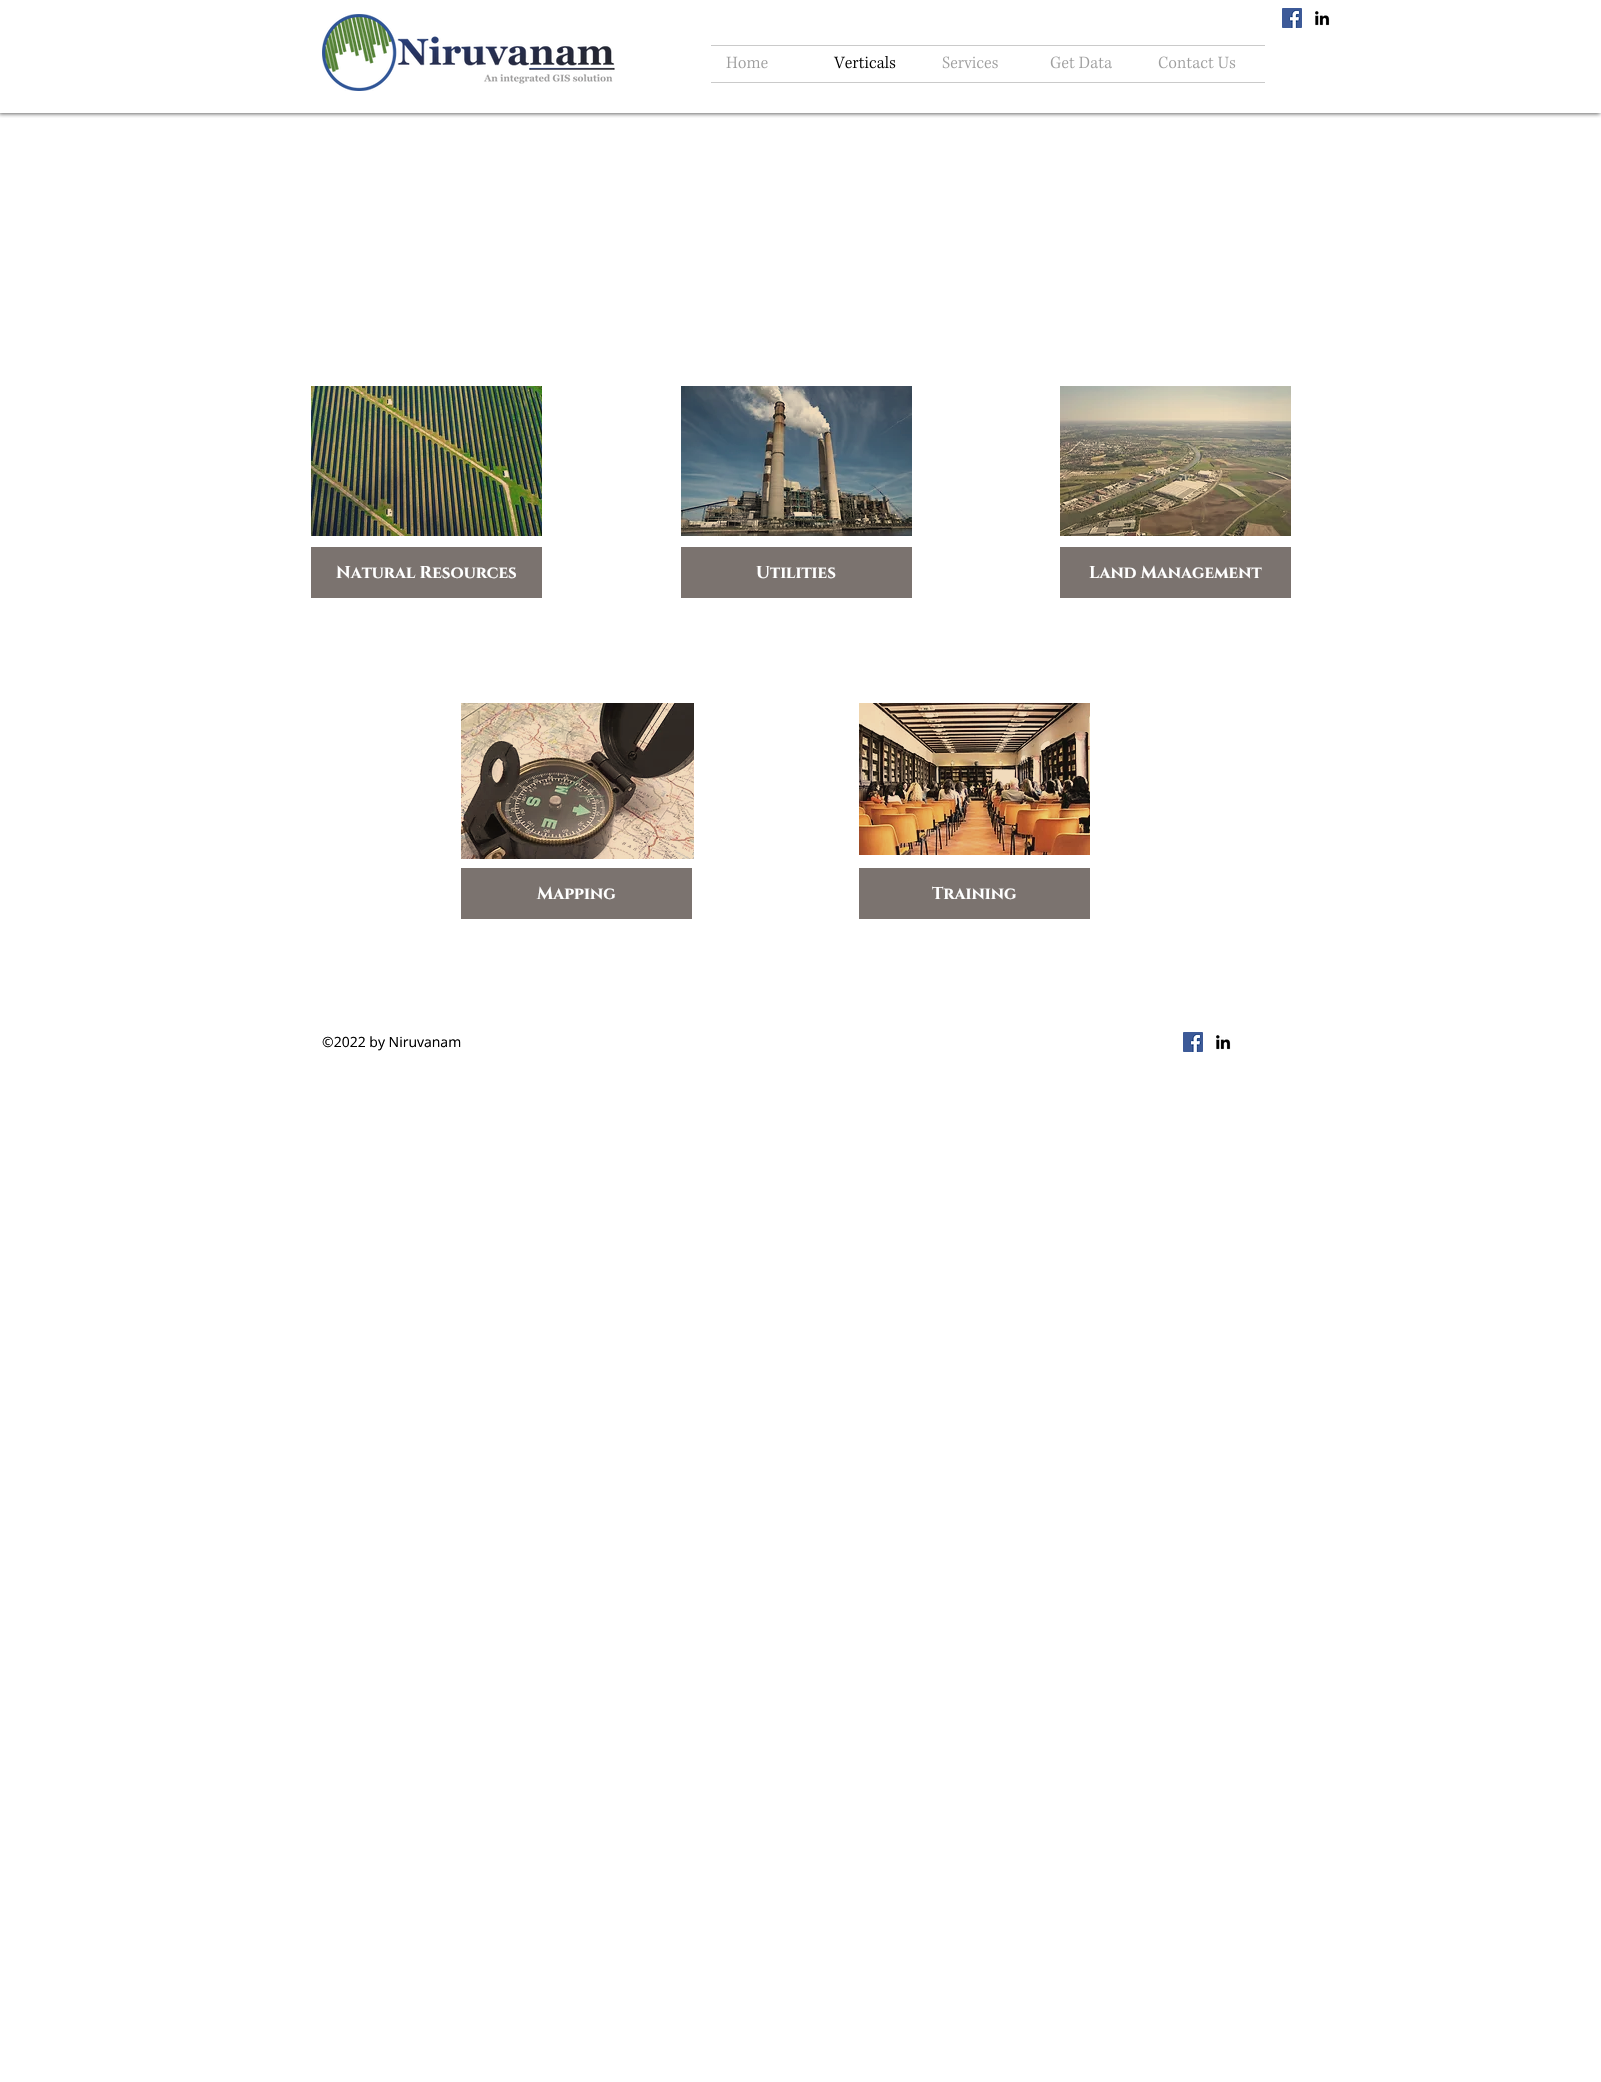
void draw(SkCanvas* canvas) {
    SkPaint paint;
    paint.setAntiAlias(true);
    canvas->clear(0xFFFFFFFF);
    canvas->save();
    canvas->clipRect(SkRect::MakeXYWH(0, 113, 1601, 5));
    paint.setColor(0x99000000);
    paint.setMaskFilter(SkMaskFilter::MakeBlur(kNormal_SkBlurStyle, 2));
    canvas->drawRect(SkRect::MakeXYWH(-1, 1, 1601, 113), paint);
    paint.setMaskFilter(nullptr);
    canvas->restore();
    canvas->drawImageRect(SkImages::DeferredFromEncodedData(SkData::MakeFromFileName("img1.png")), SkRect::MakeXYWH(322, 14, 293, 77), SkSamplingOptions());
    paint.setColor(0xFFCACACA);
    canvas->drawRect(SkRect::MakeXYWH(711, 45, 554, 1), paint);
    canvas->drawRect(SkRect::MakeXYWH(711, 82, 554, 1), paint);
    canvas->drawImageRect(SkImages::DeferredFromEncodedData(SkData::MakeFromFileName("img2.png")), SkRect::MakeXYWH(726, 56, 42, 13), SkSamplingOptions());
    canvas->drawImageRect(SkImages::DeferredFromEncodedData(SkData::MakeFromFileName("img3.png")), SkRect::MakeXYWH(833, 56, 63, 13), SkSamplingOptions());
    canvas->drawImageRect(SkImages::DeferredFromEncodedData(SkData::MakeFromFileName("img4.png")), SkRect::MakeXYWH(942, 56, 56, 13), SkSamplingOptions());
    canvas->drawImageRect(SkImages::DeferredFromEncodedData(SkData::MakeFromFileName("img5.png")), SkRect::MakeXYWH(1050, 56, 62, 13), SkSamplingOptions());
    canvas->drawImageRect(SkImages::DeferredFromEncodedData(SkData::MakeFromFileName("img6.png")), SkRect::MakeXYWH(1158, 56, 78, 13), SkSamplingOptions());
    canvas->drawImageRect(SkImages::DeferredFromEncodedData(SkData::MakeFromFileName("img7.png")), SkRect::MakeXYWH(1282, 8, 20, 20), SkSamplingOptions());
    canvas->drawImageRect(SkImages::DeferredFromEncodedData(SkData::MakeFromFileName("img8.png")), SkRect::MakeXYWH(1315, 11, 15, 15), SkSamplingOptions());
    canvas->drawImageRect(SkImages::DeferredFromEncodedData(SkData::MakeFromFileName("img9.png")), SkRect::MakeXYWH(311, 386, 231, 150), SkSamplingOptions());
    canvas->drawImageRect(SkImages::DeferredFromEncodedData(SkData::MakeFromFileName("img10.png")), SkRect::MakeXYWH(681, 386, 231, 150), SkSamplingOptions());
    canvas->drawImageRect(SkImages::DeferredFromEncodedData(SkData::MakeFromFileName("img11.png")), SkRect::MakeXYWH(1060, 386, 231, 150), SkSamplingOptions());
    paint.setColor(0xFF7B736F);
    canvas->drawRect(SkRect::MakeXYWH(311, 547, 231, 51), paint);
    SkFont font1(fontMgr->matchFamilyStyle("Cinzel", SkFontStyle::Bold()), 17);
    font1.setSubpixel(true);
    paint.setColor(0xFFFFFFFF);
    canvas->drawString("Natural Resources", 336, 578, font1, paint);
    paint.setColor(0xFF7B736F);
    canvas->drawRect(SkRect::MakeXYWH(681, 547, 231, 51), paint);
    paint.setColor(0xFFFFFFFF);
    canvas->drawString("Utilities", 756, 578, font1, paint);
    paint.setColor(0xFF7B736F);
    canvas->drawRect(SkRect::MakeXYWH(1060, 547, 231, 51), paint);
    paint.setColor(0xFFFFFFFF);
    canvas->drawString("Land Management", 1089, 578, font1, paint);
    canvas->drawImageRect(SkImages::DeferredFromEncodedData(SkData::MakeFromFileName("img12.png")), SkRect::MakeXYWH(461, 703, 233, 156), SkSamplingOptions());
    canvas->drawImageRect(SkImages::DeferredFromEncodedData(SkData::MakeFromFileName("img13.png")), SkRect::MakeXYWH(859, 703, 231, 152), SkSamplingOptions());
    paint.setColor(0xFF7B736F);
    canvas->drawRect(SkRect::MakeXYWH(461, 868, 231, 51), paint);
    paint.setColor(0xFFFFFFFF);
    canvas->drawString("Mapping", 537, 899, font1, paint);
    paint.setColor(0xFF7B736F);
    canvas->drawRect(SkRect::MakeXYWH(859, 868, 231, 51), paint);
    paint.setColor(0xFFFFFFFF);
    canvas->drawString("Training", 932, 899, font1, paint);
    SkFont font2(fontMgr->matchFamilyStyle("Open Sans", SkFontStyle::Normal()), 14);
    font2.setSubpixel(true);
    paint.setColor(0xFF000000);
    canvas->drawString("©2022 by Niruvanam", 322, 1047, font2, paint);
    canvas->drawImageRect(SkImages::DeferredFromEncodedData(SkData::MakeFromFileName("img7.png")), SkRect::MakeXYWH(1183, 1032, 20, 20), SkSamplingOptions());
    canvas->drawImageRect(SkImages::DeferredFromEncodedData(SkData::MakeFromFileName("img8.png")), SkRect::MakeXYWH(1216, 1035, 15, 15), SkSamplingOptions());
}
